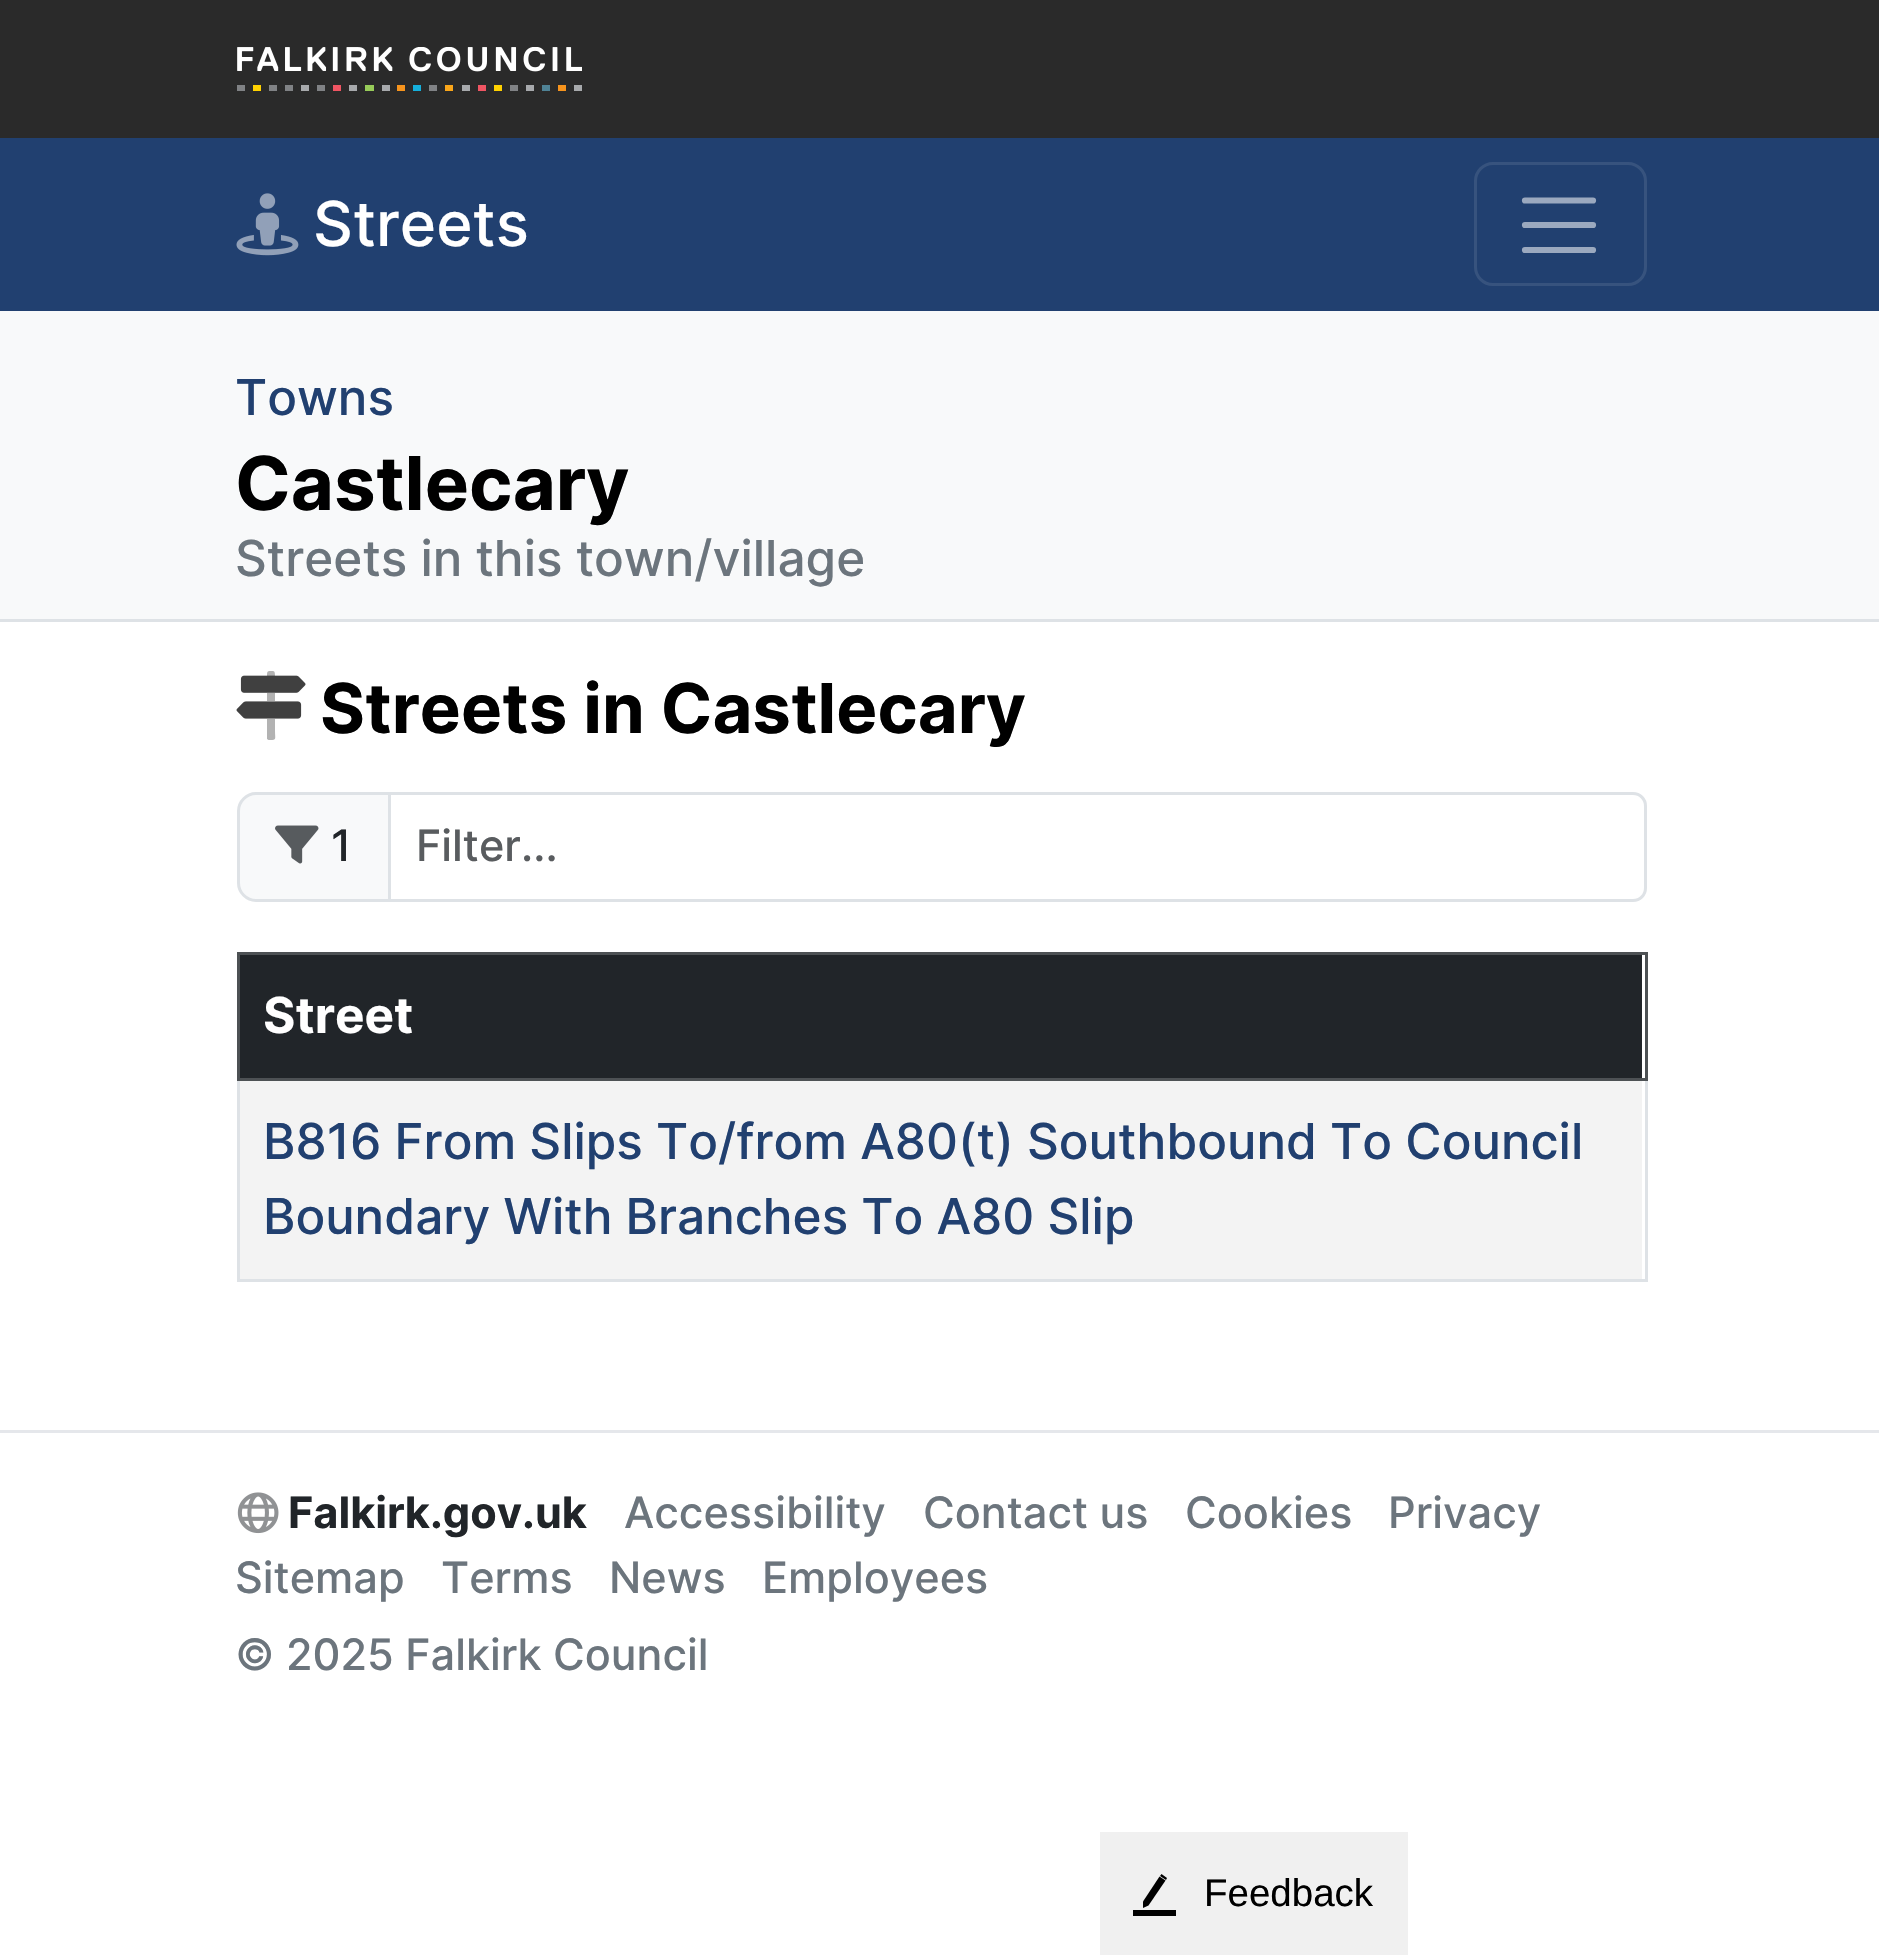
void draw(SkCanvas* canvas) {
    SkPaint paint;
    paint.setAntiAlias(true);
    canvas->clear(0xFFFFFFFF);
    paint.setColor(0xFF2A2A2A);
    canvas->drawRect(SkRect::MakeXYWH(0, 0, 1879, 138), paint);
    canvas->drawImageRect(SkImages::DeferredFromEncodedData(SkData::MakeFromFileName("img1.png")), SkRect::MakeXYWH(237, 47, 345, 44), SkSamplingOptions());
    paint.setColor(0xFF214070);
    canvas->drawRect(SkRect::MakeXYWH(0, 138, 1879, 173), paint);
    canvas->drawImageRect(SkImages::DeferredFromEncodedData(SkData::MakeFromFileName("img2.png")), SkRect::MakeXYWH(236, 193, 63, 63), SkSamplingOptions());
    SkFont font1(fontMgr->matchFamilyStyle("Inter", SkFontStyle(500, SkFontStyle::kNormal_Width, SkFontStyle::kUpright_Slant)), 62);
    font1.setSubpixel(true);
    paint.setColor(0xFFFFFFFF);
    canvas->drawString("Streets", 313, 246, font1, paint);
    paint.setStyle(SkPaint::kStroke_Style);
    paint.setStrokeWidth(3);
    paint.setColor(0xFF37537E);
    canvas->drawRoundRect(SkRect::MakeXYWH(1475.5f, 163.5f, 170, 121), 17.5f, 17.5f, paint);
    paint.setStrokeWidth(6.2f);
    paint.setStrokeCap(SkPaint::kRound_Cap);
    paint.setColor(0xFF9BA9BF);
    canvas->drawPath(SkPathBuilder().moveTo(1525, 200.5f).lineTo(1593, 200.5f).moveTo(1525, 225).lineTo(1593, 225).moveTo(1525, 250).lineTo(1593, 250).detach(), paint);
    paint.setStyle(SkPaint::kFill_Style);
    paint.setColor(0xFFF8F9FA);
    canvas->drawRect(SkRect::MakeXYWH(0, 311, 1879, 308), paint);
    paint.setColor(0xFFDEE2E6);
    canvas->drawRect(SkRect::MakeXYWH(0, 619, 1879, 3), paint);
    SkFont font2(fontMgr->matchFamilyStyle("Inter", SkFontStyle(500, SkFontStyle::kNormal_Width, SkFontStyle::kUpright_Slant)), 49.5f);
    font2.setSubpixel(true);
    paint.setColor(0xFF214070);
    canvas->drawString("Towns", 235, 415, font2, paint);
    SkFont font3(fontMgr->matchFamilyStyle("Inter", SkFontStyle::Bold()), 74.25f);
    font3.setSubpixel(true);
    paint.setColor(0xFF000000);
    canvas->drawString("Castlecary", 235, 510, font3, paint);
    paint.setColor(0xFF6C757D);
    canvas->drawString("Streets in this town/village", 235, 576, font2, paint);
    canvas->drawImageRect(SkImages::DeferredFromEncodedData(SkData::MakeFromFileName("img3.png")), SkRect::MakeXYWH(236, 675, 70, 44), SkSamplingOptions());
    paint.setColor(0x4D000000);
    canvas->drawPath(SkPathBuilder().moveTo(267, 738).lineTo(267, 719).lineTo(275, 719).lineTo(275, 731).cubicTo(275, 739, 277, 740, 270, 740).cubicTo(269, 740, 268, 740, 267, 739).close().moveTo(273, 671).cubicTo(275, 671, 275, 674, 275, 676).lineTo(267, 676).cubicTo(267, 670, 268, 671, 273, 671).close().moveTo(267, 701).lineTo(267, 693).lineTo(275, 693).lineTo(275, 701).close().detach(), paint);
    SkFont font4(fontMgr->matchFamilyStyle("Inter", SkFontStyle::Bold()), 68.75f);
    font4.setSubpixel(true);
    paint.setColor(0xFF000000);
    canvas->drawString("Streets in Castlecary", 320, 733, font4, paint);
    paint.setColor(0xFFF8F9FA);
    canvas->drawPath(SkPathBuilder().moveTo(256, 793.5f).lineTo(389.5f, 793.5f).lineTo(389.5f, 900.5f).lineTo(256, 900.5f).cubicTo(246.5f, 900.5f, 238.5f, 892.5f, 238.5f, 883).lineTo(238.5f, 811).cubicTo(238.5f, 801.5f, 246.5f, 793.5f, 256, 793.5f).close().detach(), paint);
    paint.setStyle(SkPaint::kStroke_Style);
    paint.setStrokeWidth(3);
    paint.setStrokeCap(SkPaint::kButt_Cap);
    paint.setColor(0xFFDEE2E6);
    canvas->drawPath(SkPathBuilder().moveTo(256, 793.5f).lineTo(389.5f, 793.5f).lineTo(389.5f, 900.5f).lineTo(256, 900.5f).cubicTo(246.5f, 900.5f, 238.5f, 892.5f, 238.5f, 883).lineTo(238.5f, 811).cubicTo(238.5f, 801.5f, 246.5f, 793.5f, 256, 793.5f).close().detach(), paint);
    canvas->drawImageRect(SkImages::DeferredFromEncodedData(SkData::MakeFromFileName("img4.png")), SkRect::MakeXYWH(275, 825, 44, 39), SkSamplingOptions());
    SkFont font5(fontMgr->matchFamilyStyle("Inter", SkFontStyle(500, SkFontStyle::kNormal_Width, SkFontStyle::kUpright_Slant)), 43.25f);
    font5.setSubpixel(true);
    paint.setStyle(SkPaint::kFill_Style);
    paint.setColor(0xFF212529);
    canvas->drawString("1", 331, 861, font5, paint);
    paint.setStyle(SkPaint::kStroke_Style);
    paint.setColor(0xFFDEE2E6);
    canvas->drawPath(SkPathBuilder().moveTo(389.5f, 793.5f).lineTo(1633, 793.5f).cubicTo(1640, 793.5f, 1645.5f, 799, 1645.5f, 806).lineTo(1645.5f, 888).cubicTo(1645.5f, 895, 1640, 900.5f, 1633, 900.5f).lineTo(389.5f, 900.5f).close().detach(), paint);
    paint.setStyle(SkPaint::kFill_Style);
    paint.setColor(0xFF595C5F);
    canvas->drawString("Filter...", 416, 861, font5, paint);
    paint.setColor(0xFF4D5154);
    canvas->drawRect(SkRect::MakeXYWH(237, 952, 1410, 3), paint);
    canvas->drawRect(SkRect::MakeXYWH(237, 1078, 1410, 3), paint);
    paint.setColor(0xFF212529);
    canvas->drawRect(SkRect::MakeXYWH(240, 955, 1402, 123), paint);
    paint.setColor(0xFFDEE2E6);
    canvas->drawRect(SkRect::MakeXYWH(237, 1279, 1410, 3), paint);
    canvas->drawRect(SkRect::MakeXYWH(1645, 1078, 3, 204), paint);
    paint.setColor(0xFF4D5154);
    canvas->drawRect(SkRect::MakeXYWH(1645, 952, 3, 129), paint);
    paint.setColor(0xFFDEE2E6);
    canvas->drawRect(SkRect::MakeXYWH(237, 1078, 3, 204), paint);
    paint.setColor(0xFF4D5154);
    canvas->drawRect(SkRect::MakeXYWH(237, 952, 3, 129), paint);
    SkFont font6(fontMgr->matchFamilyStyle("Inter", SkFontStyle::Bold()), 49.5f);
    font6.setSubpixel(true);
    paint.setColor(0xFFFFFFFF);
    canvas->drawString("Street", 263, 1033, font6, paint);
    paint.setColor(0xFFF3F3F3);
    canvas->drawRect(SkRect::MakeXYWH(240, 1081, 1402, 198), paint);
    paint.setColor(0xFF214070);
    canvas->drawString("B816 From Slips To/from A80(t) Southbound To Council", 263, 1159, font2, paint);
    canvas->drawString("Boundary With Branches To A80 Slip", 263, 1234, font2, paint);
    paint.setColor(0xFFE5E7EB);
    canvas->drawRect(SkRect::MakeXYWH(0, 1430, 1879, 3), paint);
    canvas->drawImageRect(SkImages::DeferredFromEncodedData(SkData::MakeFromFileName("img5.png")), SkRect::MakeXYWH(237, 1492, 42, 42), SkSamplingOptions());
    SkFont font7(fontMgr->matchFamilyStyle("Inter", SkFontStyle::Bold()), 43.25f);
    font7.setSubpixel(true);
    paint.setColor(0xFF212529);
    canvas->drawString("Falkirk.gov.uk", 288, 1528, font7, paint);
    paint.setColor(0xFF6C757D);
    canvas->drawString("Accessibility", 624, 1528, font5, paint);
    canvas->drawString("Contact us", 923, 1528, font5, paint);
    canvas->drawString("Cookies", 1185, 1528, font5, paint);
    canvas->drawString("Privacy", 1388, 1528, font5, paint);
    canvas->drawString("Sitemap", 235, 1593, font5, paint);
    canvas->drawString("Terms", 441, 1593, font5, paint);
    canvas->drawString("News", 609, 1593, font5, paint);
    canvas->drawString("Employees", 762, 1593, font5, paint);
    canvas->drawString("© 2025 Falkirk Council", 235, 1670, font5, paint);
    paint.setColor(0xFFF0F0F0);
    canvas->drawRect(SkRect::MakeXYWH(1100, 1832, 308, 123), paint);
    paint.setColor(0xFF000000);
    canvas->drawPath(SkPathBuilder().moveTo(1165.5f, 1880.5f).lineTo(1148.5f, 1905.5f).lineTo(1143, 1908).lineTo(1143, 1901.5f).lineTo(1159.5f, 1876.5f).close().detach(), paint);
    canvas->drawPath(SkPathBuilder().moveTo(1160, 1876).lineTo(1161.5f, 1874).lineTo(1167, 1878).lineTo(1166, 1880).close().detach(), paint);
    canvas->drawRect(SkRect::MakeXYWH(1133, 1910, 43, 6), paint);
    SkFont font8(fontMgr->matchFamilyStyle("Liberation Sans", SkFontStyle::Normal()), 38.5f);
    font8.setSubpixel(true);
    canvas->drawString("Feedback", 1204, 1906, font8, paint);
}
